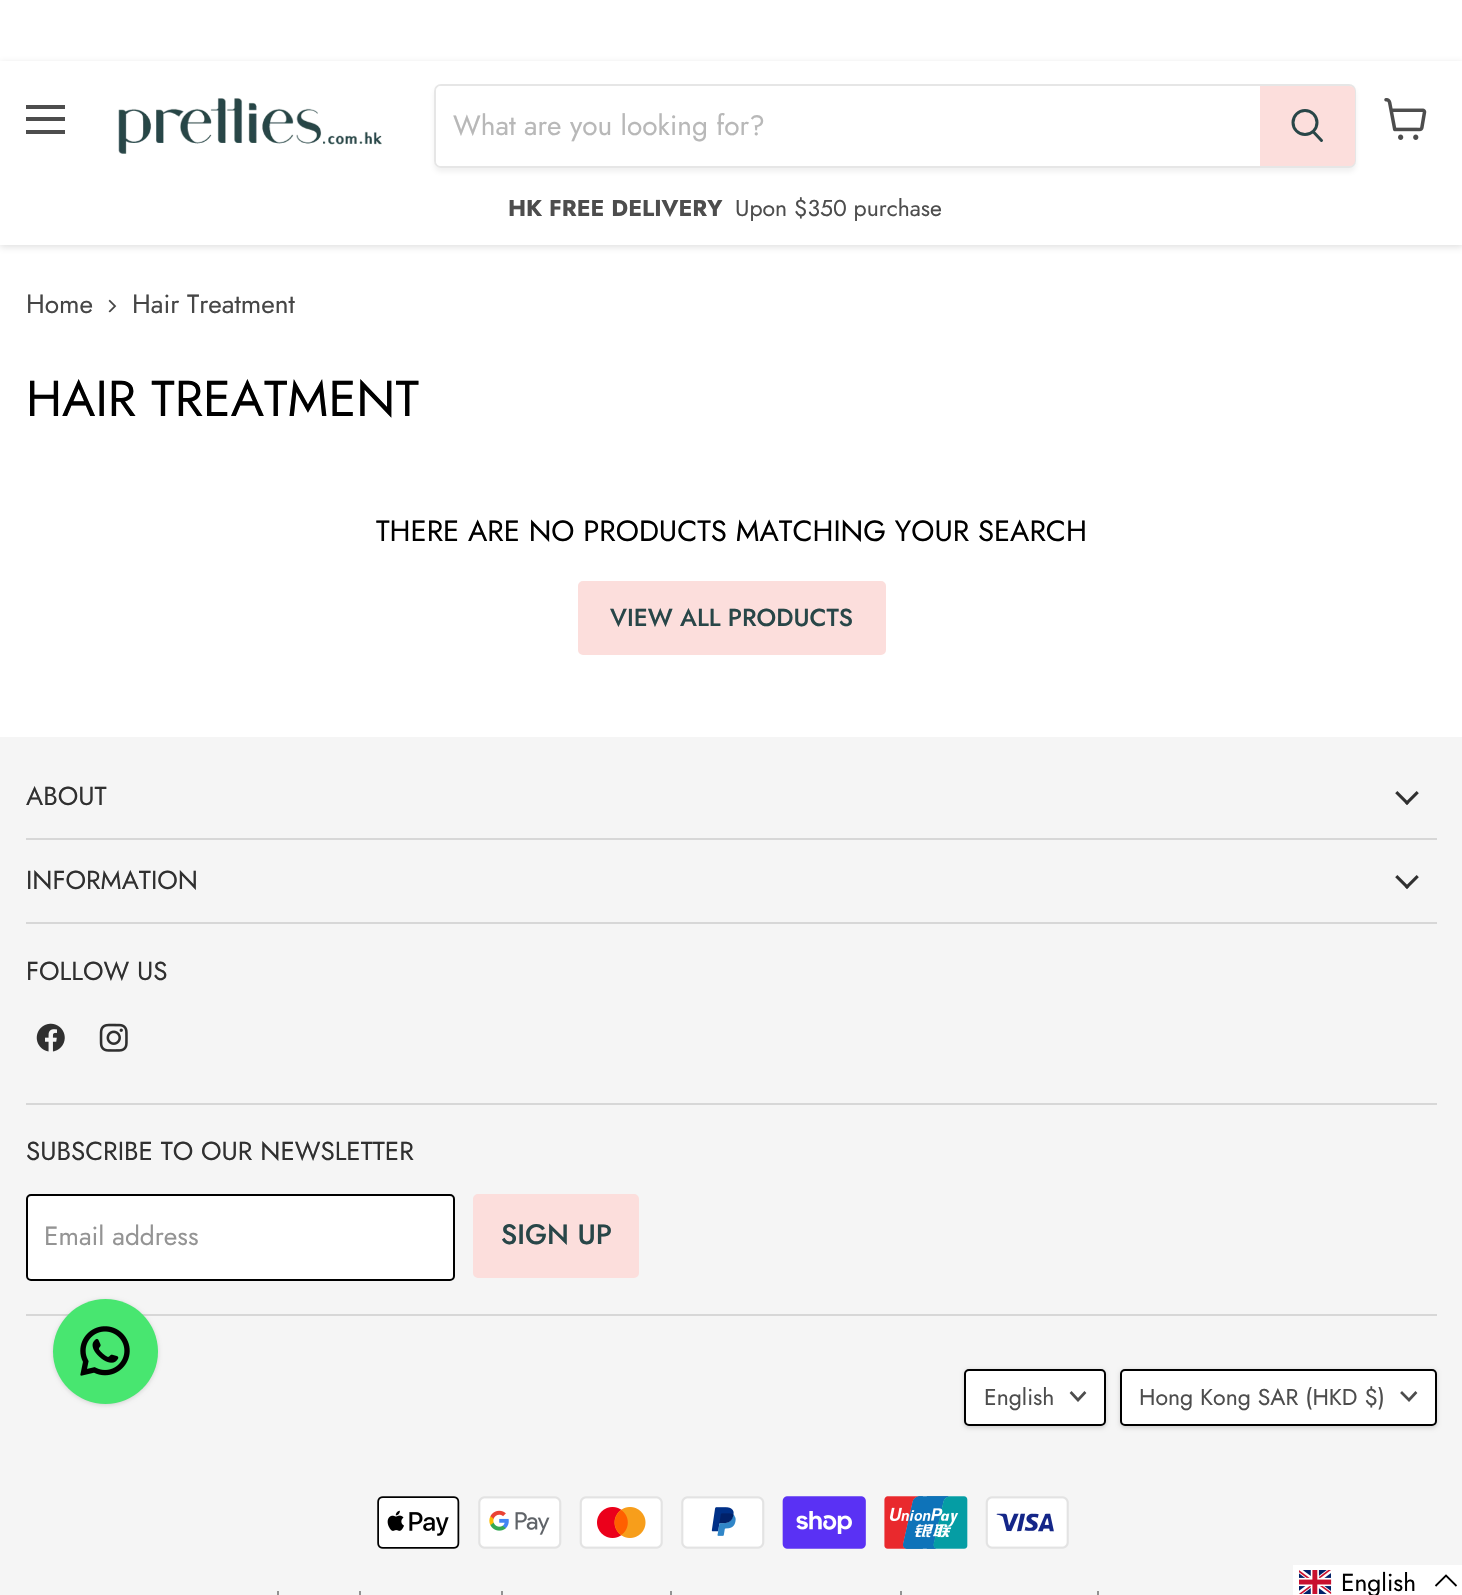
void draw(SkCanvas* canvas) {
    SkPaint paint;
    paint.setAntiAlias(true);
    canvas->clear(0xFFFFFFFF);
    paint.setColor(0x40808080);
    paint.setMaskFilter(SkMaskFilter::MakeBlur(kNormal_SkBlurStyle, 3.5f));
    canvas->drawRect(SkRect::MakeXYWH(0, 63, 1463, 184), paint);
    paint.setMaskFilter(nullptr);
    paint.setColor(0xFFFFFFFF);
    canvas->drawRect(SkRect::MakeXYWH(0, 61, 1462, 184), paint);
    paint.setColor(0xFF4D4D4D);
    canvas->drawRect(SkRect::MakeXYWH(26, 105, 39, 4), paint);
    canvas->drawRect(SkRect::MakeXYWH(26, 117, 39, 4), paint);
    canvas->drawRect(SkRect::MakeXYWH(26, 130, 39, 4), paint);
    canvas->drawImageRect(SkImages::DeferredFromEncodedData(SkData::MakeFromFileName("img1.png")), SkRect::MakeXYWH(118, 98, 264, 56), SkSamplingOptions());
    canvas->save();
    canvas->clipPath(SkPathBuilder(SkPathFillType::kEvenOdd).moveTo(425, 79).lineTo(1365, 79).lineTo(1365, 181).lineTo(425, 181).close().moveTo(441, 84).lineTo(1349, 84).cubicTo(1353, 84, 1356, 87, 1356, 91).lineTo(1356, 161).cubicTo(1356, 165, 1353, 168, 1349, 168).lineTo(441, 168).cubicTo(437, 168, 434, 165, 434, 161).lineTo(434, 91).cubicTo(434, 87, 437, 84, 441, 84).close().detach(), true);
    paint.setColor(0x1C808080);
    paint.setMaskFilter(SkMaskFilter::MakeBlur(kNormal_SkBlurStyle, 2.5f));
    canvas->drawRoundRect(SkRect::MakeXYWH(434, 88, 922, 84), 7, 7, paint);
    paint.setMaskFilter(nullptr);
    canvas->restore();
    paint.setStyle(SkPaint::kStroke_Style);
    paint.setStrokeWidth(2);
    paint.setColor(0x33808080);
    canvas->drawRoundRect(SkRect::MakeXYWH(435, 85, 920, 82), 6, 6, paint);
    paint.setStyle(SkPaint::kFill_Style);
    paint.setColor(0xFFFFFFFF);
    canvas->drawPath(SkPathBuilder().moveTo(441, 86).lineTo(1260, 86).lineTo(1260, 166).lineTo(441, 166).cubicTo(438, 166, 436, 164, 436, 161).lineTo(436, 91).cubicTo(436, 88, 438, 86, 441, 86).close().detach(), paint);
    SkFont font1(fontMgr->matchFamilyStyle("Jost", SkFontStyle::Normal()), 28);
    font1.setSubpixel(true);
    paint.setColor(0xFFB8B8B8);
    canvas->drawString("What are you looking for?", 453, 135, font1, paint);
    paint.setColor(0xFFFCDEDC);
    canvas->drawPath(SkPathBuilder().moveTo(1261, 87).lineTo(1350, 87).cubicTo(1352, 87, 1354, 89, 1354, 91).lineTo(1354, 161).cubicTo(1354, 163, 1352, 165, 1350, 165).lineTo(1261, 165).close().detach(), paint);
    paint.setStyle(SkPaint::kStroke_Style);
    canvas->drawPath(SkPathBuilder().moveTo(1261, 87).lineTo(1350, 87).cubicTo(1352, 87, 1354, 89, 1354, 91).lineTo(1354, 161).cubicTo(1354, 163, 1352, 165, 1350, 165).lineTo(1261, 165).close().detach(), paint);
    paint.setStrokeWidth(3);
    paint.setStrokeCap(SkPaint::kRound_Cap);
    paint.setColor(0xFF284648);
    canvas->drawPath(SkPathBuilder().moveTo(1321.5f, 140.5f).lineTo(1313.5f, 132).detach(), paint);
    paint.setStrokeCap(SkPaint::kButt_Cap);
    canvas->drawCircle(1305, 122.5f, 12, paint);
    SkFont font2(fontMgr->matchFamilyStyle("Jost", SkFontStyle::Bold()), 23);
    font2.setSubpixel(true);
    paint.setStyle(SkPaint::kFill_Style);
    paint.setColor(0xFF4D4D4D);
    canvas->drawString("HK FREE DELIVERY", 508, 216, font2, paint);
    SkFont font3(fontMgr->matchFamilyStyle("Jost", SkFontStyle::Normal()), 23);
    font3.setSubpixel(true);
    canvas->drawString("Upon $350 purchase", 735, 216, font3, paint);
    canvas->drawImageRect(SkImages::DeferredFromEncodedData(SkData::MakeFromFileName("img2.png")), SkRect::MakeXYWH(1384, 98, 43, 42), SkSamplingOptions());
    SkFont font4(fontMgr->matchFamilyStyle("Jost", SkFontStyle::Normal()), 26.25f);
    font4.setSubpixel(true);
    paint.setColor(0xFF464646);
    canvas->drawString("Home", 26, 313, font4, paint);
    canvas->drawImageRect(SkImages::DeferredFromEncodedData(SkData::MakeFromFileName("img3.png")), SkRect::MakeXYWH(108, 299, 9, 14), SkSamplingOptions());
    canvas->drawString("Hair Treatment", 132, 313, font4, paint);
    SkFont font5(fontMgr->matchFamilyStyle("Jost", SkFontStyle::Normal()), 50.5f);
    font5.setSubpixel(true);
    paint.setColor(0xFF000000);
    canvas->drawString("HAIR TREATMENT", 26, 416, font5, paint);
    SkFont font6(fontMgr->matchFamilyStyle("Jost", SkFontStyle::Normal()), 29.3f);
    font6.setSubpixel(true);
    canvas->drawString("THERE ARE NO PRODUCTS MATCHING YOUR SEARCH", 376, 541, font6, paint);
    paint.setColor(0xFFFCDEDC);
    canvas->drawRoundRect(SkRect::MakeXYWH(579, 582, 306, 72), 4, 4, paint);
    paint.setStyle(SkPaint::kStroke_Style);
    paint.setStrokeWidth(2);
    canvas->drawRoundRect(SkRect::MakeXYWH(579, 582, 306, 72), 4, 4, paint);
    SkFont font7(fontMgr->matchFamilyStyle("Jost", SkFontStyle(500, SkFontStyle::kNormal_Width, SkFontStyle::kUpright_Slant)), 24.5f);
    font7.setSubpixel(true);
    paint.setStyle(SkPaint::kFill_Style);
    paint.setColor(0xFF284648);
    canvas->drawString("VIEW ALL PRODUCTS", 610, 626, font7, paint);
    paint.setColor(0xFFF5F5F5);
    canvas->drawRect(SkRect::MakeXYWH(0, 737, 1462, 858), paint);
    paint.setColor(0xFFD7D7D7);
    canvas->drawRect(SkRect::MakeXYWH(26, 838, 1411, 2), paint);
    SkFont font8(fontMgr->matchFamilyStyle("Jost", SkFontStyle::Normal()), 26);
    font8.setSubpixel(true);
    paint.setColor(0xFF303030);
    canvas->drawString("ABOUT", 26, 805, font8, paint);
    canvas->drawImageRect(SkImages::DeferredFromEncodedData(SkData::MakeFromFileName("img4.png")), SkRect::MakeXYWH(1395, 791, 24, 14), SkSamplingOptions());
    paint.setColor(0xFFD7D7D7);
    canvas->drawRect(SkRect::MakeXYWH(26, 922, 1411, 2), paint);
    paint.setColor(0xFF303030);
    canvas->drawString("INFORMATION", 26, 889, font8, paint);
    canvas->drawImageRect(SkImages::DeferredFromEncodedData(SkData::MakeFromFileName("img4.png")), SkRect::MakeXYWH(1395, 875, 24, 14), SkSamplingOptions());
    paint.setColor(0xFFD7D7D7);
    canvas->drawRect(SkRect::MakeXYWH(26, 1103, 1411, 2), paint);
    paint.setColor(0xFF303030);
    canvas->drawString("FOLLOW US", 26, 980, font8, paint);
    canvas->drawImageRect(SkImages::DeferredFromEncodedData(SkData::MakeFromFileName("img5.png")), SkRect::MakeXYWH(36, 1023, 29, 29), SkSamplingOptions());
    canvas->drawImageRect(SkImages::DeferredFromEncodedData(SkData::MakeFromFileName("img6.png")), SkRect::MakeXYWH(99, 1023, 29, 29), SkSamplingOptions());
    paint.setColor(0xFFD7D7D7);
    canvas->drawRect(SkRect::MakeXYWH(26, 1314, 1411, 2), paint);
    paint.setColor(0xFF303030);
    canvas->drawString("SUBSCRIBE TO OUR NEWSLETTER", 26, 1160, font8, paint);
    paint.setColor(0xFFFFFFFF);
    canvas->drawRoundRect(SkRect::MakeXYWH(27, 1195, 427, 85), 4, 4, paint);
    paint.setStyle(SkPaint::kStroke_Style);
    paint.setColor(0xFF000000);
    canvas->drawRoundRect(SkRect::MakeXYWH(27, 1195, 427, 85), 4, 4, paint);
    paint.setStyle(SkPaint::kFill_Style);
    paint.setColor(0xFF949494);
    canvas->drawString("Email address", 44, 1245, font4, paint);
    paint.setColor(0xFFFCDEDC);
    canvas->drawRoundRect(SkRect::MakeXYWH(474, 1195, 164, 82), 4, 4, paint);
    paint.setStyle(SkPaint::kStroke_Style);
    canvas->drawRoundRect(SkRect::MakeXYWH(474, 1195, 164, 82), 4, 4, paint);
    SkFont font9(fontMgr->matchFamilyStyle("Jost", SkFontStyle(500, SkFontStyle::kNormal_Width, SkFontStyle::kUpright_Slant)), 28);
    font9.setSubpixel(true);
    paint.setStyle(SkPaint::kFill_Style);
    paint.setColor(0xFF284648);
    canvas->drawString("SIGN UP", 501, 1244, font9, paint);
    paint.setColor(0x26000000);
    paint.setMaskFilter(SkMaskFilter::MakeBlur(kNormal_SkBlurStyle, 2));
    canvas->drawRoundRect(SkRect::MakeXYWH(964, 1370, 142, 58), 5, 5, paint);
    paint.setMaskFilter(nullptr);
    paint.setColor(0xFFFFFFFF);
    canvas->drawRoundRect(SkRect::MakeXYWH(965, 1370, 140, 55), 4, 4, paint);
    paint.setStyle(SkPaint::kStroke_Style);
    paint.setColor(0xFF000000);
    canvas->drawRoundRect(SkRect::MakeXYWH(965, 1370, 140, 55), 4, 4, paint);
    paint.setStyle(SkPaint::kFill_Style);
    paint.setColor(0xFF4D4D4D);
    canvas->drawString("English", 984, 1405, font3, paint);
    paint.setStyle(SkPaint::kStroke_Style);
    paint.setStrokeWidth(2.7f);
    paint.setStrokeCap(SkPaint::kSquare_Cap);
    canvas->drawPath(SkPathBuilder().moveTo(1078, 1400).lineTo(1084.5f, 1393).moveTo(1078, 1400).lineTo(1071.5f, 1393).detach(), paint);
    paint.setStyle(SkPaint::kFill_Style);
    paint.setColor(0x26000000);
    paint.setMaskFilter(SkMaskFilter::MakeBlur(kNormal_SkBlurStyle, 2));
    canvas->drawRoundRect(SkRect::MakeXYWH(1120, 1370, 317, 58), 5, 5, paint);
    paint.setMaskFilter(nullptr);
    paint.setColor(0xFFFFFFFF);
    canvas->drawRoundRect(SkRect::MakeXYWH(1121, 1370, 315, 55), 4, 4, paint);
    paint.setStyle(SkPaint::kStroke_Style);
    paint.setStrokeWidth(2);
    paint.setStrokeCap(SkPaint::kButt_Cap);
    paint.setColor(0xFF000000);
    canvas->drawRoundRect(SkRect::MakeXYWH(1121, 1370, 315, 55), 4, 4, paint);
    paint.setStyle(SkPaint::kFill_Style);
    paint.setColor(0xFF4D4D4D);
    canvas->drawString("Hong Kong SAR (HKD $)", 1139, 1405, font3, paint);
    paint.setStyle(SkPaint::kStroke_Style);
    paint.setStrokeWidth(2.7f);
    paint.setStrokeCap(SkPaint::kSquare_Cap);
    canvas->drawPath(SkPathBuilder().moveTo(1409, 1400).lineTo(1415.5f, 1393).moveTo(1409, 1400).lineTo(1402, 1393).detach(), paint);
    canvas->drawImageRect(SkImages::DeferredFromEncodedData(SkData::MakeFromFileName("img7.png")), SkRect::MakeXYWH(377, 1496, 83, 53), SkSamplingOptions());
    canvas->drawImageRect(SkImages::DeferredFromEncodedData(SkData::MakeFromFileName("img8.png")), SkRect::MakeXYWH(478, 1496, 84, 53), SkSamplingOptions());
    canvas->drawImageRect(SkImages::DeferredFromEncodedData(SkData::MakeFromFileName("img9.png")), SkRect::MakeXYWH(579, 1496, 84, 53), SkSamplingOptions());
    canvas->drawImageRect(SkImages::DeferredFromEncodedData(SkData::MakeFromFileName("img10.png")), SkRect::MakeXYWH(681, 1496, 84, 53), SkSamplingOptions());
    canvas->drawImageRect(SkImages::DeferredFromEncodedData(SkData::MakeFromFileName("img11.png")), SkRect::MakeXYWH(782, 1496, 84, 53), SkSamplingOptions());
    canvas->drawImageRect(SkImages::DeferredFromEncodedData(SkData::MakeFromFileName("img12.png")), SkRect::MakeXYWH(884, 1496, 84, 53), SkSamplingOptions());
    canvas->drawImageRect(SkImages::DeferredFromEncodedData(SkData::MakeFromFileName("img13.png")), SkRect::MakeXYWH(985, 1496, 84, 53), SkSamplingOptions());
    paint.setStyle(SkPaint::kFill_Style);
    paint.setColor(0xFF939393);
    canvas->drawRect(SkRect::MakeXYWH(277, 1591, 2, 4), paint);
    canvas->drawRect(SkRect::MakeXYWH(359, 1591, 2, 4), paint);
    canvas->drawRect(SkRect::MakeXYWH(501, 1591, 2, 4), paint);
    canvas->drawRect(SkRect::MakeXYWH(670, 1591, 2, 4), paint);
    canvas->drawRect(SkRect::MakeXYWH(900, 1591, 2, 4), paint);
    canvas->drawRect(SkRect::MakeXYWH(1097, 1591, 2, 4), paint);
    paint.setColor(0x26000000);
    paint.setMaskFilter(SkMaskFilter::MakeBlur(kNormal_SkBlurStyle, 2));
    canvas->drawRoundRect(SkRect::MakeXYWH(53, 1300, 105, 105), 52.5f, 52.5f, paint);
    paint.setMaskFilter(nullptr);
    paint.setColor(0xFF48E670);
    canvas->drawCircle(105.5f, 1351.5f, 52.5f, paint);
    canvas->drawImageRect(SkImages::DeferredFromEncodedData(SkData::MakeFromFileName("img14.png")), SkRect::MakeXYWH(80, 1326, 50, 50), SkSamplingOptions());
    paint.setColor(0xFFFFFFFF);
    canvas->drawRect(SkRect::MakeXYWH(1293, 1565, 169, 30), paint);
    canvas->drawImageRect(SkImages::DeferredFromEncodedData(SkData::MakeFromFileName("img15.png")), SkRect::MakeXYWH(1299, 1570, 33, 24), SkSamplingOptions());
    SkFont font10(fontMgr->matchFamilyStyle("Jost", SkFontStyle::Normal()), 24.5f);
    font10.setSubpixel(true);
    paint.setColor(0xFF000000);
    canvas->drawString("English", 1341, 1591, font10, paint);
    paint.setStyle(SkPaint::kStroke_Style);
    paint.setStrokeWidth(1.8f);
    paint.setStrokeCap(SkPaint::kButt_Cap);
    canvas->drawPath(SkPathBuilder().moveTo(1456.5f, 1586).lineTo(1446, 1575.5f).lineTo(1435.5f, 1586).detach(), paint);
}
